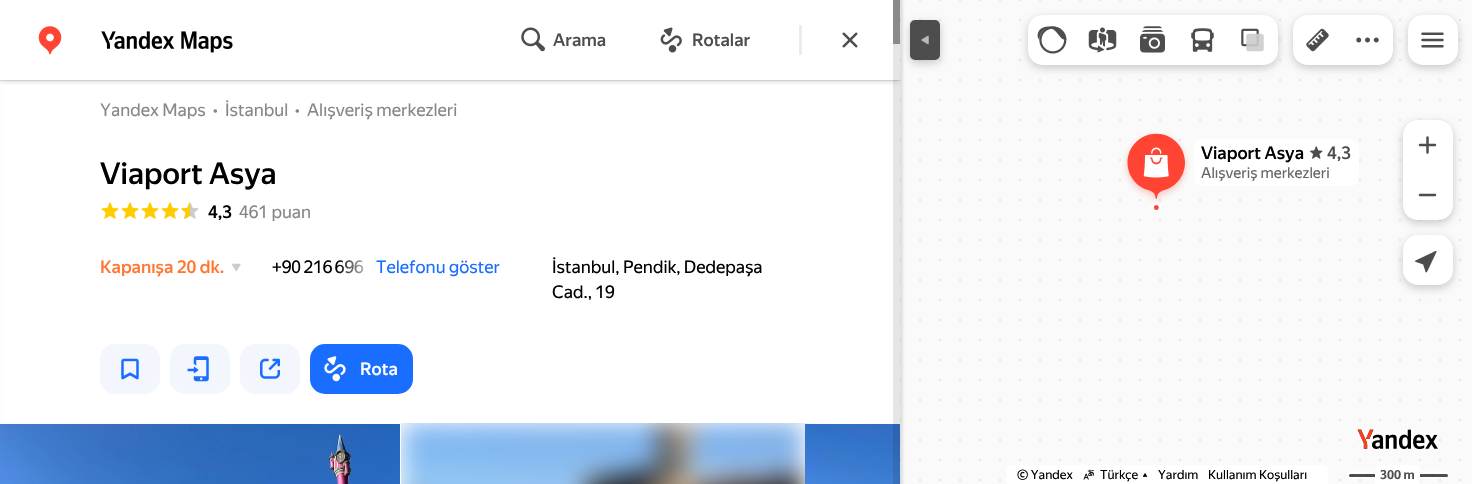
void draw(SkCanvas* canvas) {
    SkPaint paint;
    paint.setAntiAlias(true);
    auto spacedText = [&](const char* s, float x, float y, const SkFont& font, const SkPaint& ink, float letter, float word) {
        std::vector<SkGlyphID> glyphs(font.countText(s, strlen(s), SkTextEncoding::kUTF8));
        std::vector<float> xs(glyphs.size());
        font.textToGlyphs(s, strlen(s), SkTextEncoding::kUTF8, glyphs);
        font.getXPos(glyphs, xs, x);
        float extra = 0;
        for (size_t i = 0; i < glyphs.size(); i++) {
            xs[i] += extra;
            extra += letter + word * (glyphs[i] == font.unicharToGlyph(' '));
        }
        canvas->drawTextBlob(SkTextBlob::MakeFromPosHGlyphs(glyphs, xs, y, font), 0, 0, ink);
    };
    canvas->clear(0xFFFFFFFF);
    canvas->drawImageRect(SkImages::DeferredFromEncodedData(SkData::MakeFromFileName("img1.png")), SkRect::MakeXYWH(900, 0, 572, 484), SkSamplingOptions());
    paint.setColor(0x1A000000);
    paint.setMaskFilter(SkMaskFilter::MakeBlur(kNormal_SkBlurStyle, 1));
    canvas->drawRect(SkRect::MakeXYWH(3, 0, 900, 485), paint);
    paint.setMaskFilter(nullptr);
    paint.setColor(0xFFFFFFFF);
    canvas->drawRect(SkRect::MakeXYWH(2, 81, 898, 403), paint);
    paint.setColor(0xFFEBEBEB);
    canvas->drawRect(SkRect::MakeXYWH(0, 80, 900, 1), paint);
    canvas->save();
    canvas->clipRect(SkRect::MakeXYWH(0, 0, 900, 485));
    paint.setColor(0x33000000);
    paint.setMaskFilter(SkMaskFilter::MakeBlur(kNormal_SkBlurStyle, 2.5f));
    canvas->drawRect(SkRect::MakeXYWH(0, 76, 900, 5), paint);
    paint.setMaskFilter(nullptr);
    canvas->restore();
    paint.setMaskFilter(SkMaskFilter::MakeBlur(kNormal_SkBlurStyle, 4));
    canvas->drawRoundRect(SkRect::MakeXYWH(910, 23, 30, 40), 5, 5, paint);
    paint.setMaskFilter(nullptr);
    paint.setColor(0xFFFFFFFF);
    canvas->drawRect(SkRect::MakeXYWH(0, 0, 900, 80), paint);
    canvas->drawImageRect(SkImages::DeferredFromEncodedData(SkData::MakeFromFileName("img2.png")), SkRect::MakeXYWH(38, 26, 24, 29), SkSamplingOptions());
    canvas->drawImageRect(SkImages::DeferredFromEncodedData(SkData::MakeFromFileName("img3.png")), SkRect::MakeXYWH(101, 31, 132, 22), SkSamplingOptions());
    canvas->drawImageRect(SkImages::DeferredFromEncodedData(SkData::MakeFromFileName("img4.png")), SkRect::MakeXYWH(521, 27, 24, 25), SkSamplingOptions());
    SkFont font1(fontMgr->matchFamilyStyle("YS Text", SkFontStyle(500, SkFontStyle::kNormal_Width, SkFontStyle::kUpright_Slant)), 17.5f);
    font1.setSubpixel(true);
    paint.setColor(0xFF4D4D4D);
    canvas->drawString("Arama", 553, 46, font1, paint);
    canvas->drawImageRect(SkImages::DeferredFromEncodedData(SkData::MakeFromFileName("img5.png")), SkRect::MakeXYWH(660, 27, 22, 26), SkSamplingOptions());
    canvas->drawString("Rotalar", 692, 46, font1, paint);
    paint.setColor(0xFFEBEBEB);
    canvas->drawRect(SkRect::MakeXYWH(799, 25, 3, 30), paint);
    canvas->drawImageRect(SkImages::DeferredFromEncodedData(SkData::MakeFromFileName("img6.png")), SkRect::MakeXYWH(842, 32, 16, 16), SkSamplingOptions());
    SkFont font2(fontMgr->matchFamilyStyle("YS Text", SkFontStyle::Normal()), 17.5f);
    font2.setSubpixel(true);
    paint.setColor(0xFF878787);
    canvas->drawString("Yandex Maps", 100, 116, font2, paint);
    canvas->drawString("•", 213, 116, font2, paint);
    canvas->drawString("İstanbul", 225, 116, font2, paint);
    canvas->drawString("•", 295, 116, font2, paint);
    canvas->drawString("Alışveriş merkezleri", 307, 116, font2, paint);
    SkFont font3(fontMgr->matchFamilyStyle("YS Text", SkFontStyle(500, SkFontStyle::kNormal_Width, SkFontStyle::kUpright_Slant)), 30);
    font3.setSubpixel(true);
    paint.setColor(0xFF000000);
    canvas->drawString("Viaport Asya", 100, 184, font3, paint);
    canvas->drawImageRect(SkImages::DeferredFromEncodedData(SkData::MakeFromFileName("img7.png")), SkRect::MakeXYWH(101, 202, 18, 17), SkSamplingOptions());
    canvas->drawImageRect(SkImages::DeferredFromEncodedData(SkData::MakeFromFileName("img7.png")), SkRect::MakeXYWH(121, 202, 18, 17), SkSamplingOptions());
    canvas->drawImageRect(SkImages::DeferredFromEncodedData(SkData::MakeFromFileName("img7.png")), SkRect::MakeXYWH(141, 202, 18, 17), SkSamplingOptions());
    canvas->drawImageRect(SkImages::DeferredFromEncodedData(SkData::MakeFromFileName("img7.png")), SkRect::MakeXYWH(161, 202, 18, 17), SkSamplingOptions());
    canvas->drawImageRect(SkImages::DeferredFromEncodedData(SkData::MakeFromFileName("img8.png")), SkRect::MakeXYWH(181, 202, 18, 17), SkSamplingOptions());
    canvas->drawString("4,3", 208, 218, font1, paint);
    paint.setColor(0xFF878787);
    canvas->drawString("461 puan", 239, 218, font2, paint);
    paint.setColor(0xFFFF7732);
    canvas->drawString("Kapanışa 20 dk.", 100, 273, font1, paint);
    canvas->drawImageRect(SkImages::DeferredFromEncodedData(SkData::MakeFromFileName("img9.png")), SkRect::MakeXYWH(232, 263, 9, 9), SkSamplingOptions());
    paint.setColor(0xFF000000);
    spacedText("+90 216 696", 272, 273, font2, paint, 0, -1);
    {
        const SkColor colors[] = {0x00FFFFFF, 0xFFFFFFFF};
        const float stops[] = {0, 1};
        const SkPoint ends[] = {{336, 266}, {376, 266}};
        paint.setShader(SkGradientShader::MakeLinear(ends, colors, stops, 2, SkTileMode::kClamp));
        paint.setAlpha(255);
    }
    canvas->drawRect(SkRect::MakeXYWH(338, 260, 29, 14), paint);
    paint.setShader(nullptr);
    paint.setColor(0xFF196DFF);
    canvas->drawString("Telefonu göster", 376, 273, font2, paint);
    paint.setColor(0xFF000000);
    canvas->drawString("İstanbul, Pendik, Dedepaşa", 552, 273, font2, paint);
    canvas->drawString("Cad., 19", 552, 298, font2, paint);
    paint.setColor(0xFFF3F6FC);
    canvas->drawRoundRect(SkRect::MakeXYWH(100, 344, 60, 50), 15, 15, paint);
    canvas->drawImageRect(SkImages::DeferredFromEncodedData(SkData::MakeFromFileName("img10.png")), SkRect::MakeXYWH(121, 358, 18, 22), SkSamplingOptions());
    canvas->drawRoundRect(SkRect::MakeXYWH(170, 344, 60, 50), 15, 15, paint);
    canvas->drawImageRect(SkImages::DeferredFromEncodedData(SkData::MakeFromFileName("img11.png")), SkRect::MakeXYWH(187, 356, 22, 26), SkSamplingOptions());
    canvas->drawRoundRect(SkRect::MakeXYWH(240, 344, 60, 50), 15, 15, paint);
    canvas->drawImageRect(SkImages::DeferredFromEncodedData(SkData::MakeFromFileName("img12.png")), SkRect::MakeXYWH(260, 358, 20, 21), SkSamplingOptions());
    paint.setColor(0xFF196DFF);
    canvas->drawRoundRect(SkRect::MakeXYWH(310, 344, 103, 50), 15, 15, paint);
    canvas->drawImageRect(SkImages::DeferredFromEncodedData(SkData::MakeFromFileName("img13.png")), SkRect::MakeXYWH(324, 356, 22, 26), SkSamplingOptions());
    paint.setColor(0xFFFFFFFF);
    canvas->drawString("Rota", 360, 375, font1, paint);
    canvas->drawImageRect(SkImages::DeferredFromEncodedData(SkData::MakeFromFileName("img14.png")), SkRect::MakeXYWH(0, 424, 400, 60), SkSamplingOptions());
    canvas->drawImageRect(SkImages::DeferredFromEncodedData(SkData::MakeFromFileName("img15.png")), SkRect::MakeXYWH(401, 423, 403, 61), SkSamplingOptions());
    canvas->drawImageRect(SkImages::DeferredFromEncodedData(SkData::MakeFromFileName("img16.png")), SkRect::MakeXYWH(804, 423, 96, 61), SkSamplingOptions());
    paint.setColor(0xFF8A8A8A);
    canvas->drawRect(SkRect::MakeXYWH(893, 0, 7, 44), paint);
    paint.setColor(0x1A000000);
    canvas->drawRect(SkRect::MakeXYWH(893, 44, 7, 440), paint);
    paint.setColor(0xFF4D4D4D);
    canvas->drawRoundRect(SkRect::MakeXYWH(910, 20, 30, 40), 5, 5, paint);
    canvas->drawImageRect(SkImages::DeferredFromEncodedData(SkData::MakeFromFileName("img17.png")), SkRect::MakeXYWH(921, 35, 8, 10), SkSamplingOptions());
    paint.setColor(0x33000000);
    paint.setMaskFilter(SkMaskFilter::MakeBlur(kNormal_SkBlurStyle, 4));
    canvas->drawRoundRect(SkRect::MakeXYWH(1028, 18, 250, 50), 15, 15, paint);
    paint.setMaskFilter(nullptr);
    paint.setColor(0xFFFFFFFF);
    canvas->drawPath(SkPathBuilder().moveTo(1043, 15).lineTo(1078, 15).lineTo(1078, 65).lineTo(1043, 65).cubicTo(1034.5f, 65, 1028, 58.5f, 1028, 50).lineTo(1028, 30).cubicTo(1028, 21.5f, 1034.5f, 15, 1043, 15).close().detach(), paint);
    canvas->drawImageRect(SkImages::DeferredFromEncodedData(SkData::MakeFromFileName("img18.png")), SkRect::MakeXYWH(1037, 26, 30, 28), SkSamplingOptions());
    canvas->drawRect(SkRect::MakeXYWH(1078, 15, 150, 50), paint);
    canvas->drawImageRect(SkImages::DeferredFromEncodedData(SkData::MakeFromFileName("img19.png")), SkRect::MakeXYWH(1088, 27, 29, 26), SkSamplingOptions());
    canvas->drawPath(SkPathBuilder().moveTo(1228, 15).lineTo(1263, 15).cubicTo(1271.5f, 15, 1278, 21.5f, 1278, 30).lineTo(1278, 50).cubicTo(1278, 58.5f, 1271.5f, 65, 1263, 65).lineTo(1228, 65).close().detach(), paint);
    canvas->drawImageRect(SkImages::DeferredFromEncodedData(SkData::MakeFromFileName("img20.png")), SkRect::MakeXYWH(1241, 28, 23, 24), SkSamplingOptions());
    canvas->drawImageRect(SkImages::DeferredFromEncodedData(SkData::MakeFromFileName("img21.png")), SkRect::MakeXYWH(1140, 26, 25, 27), SkSamplingOptions());
    canvas->drawImageRect(SkImages::DeferredFromEncodedData(SkData::MakeFromFileName("img22.png")), SkRect::MakeXYWH(1191, 28, 23, 24), SkSamplingOptions());
    paint.setColor(0x33000000);
    paint.setMaskFilter(SkMaskFilter::MakeBlur(kNormal_SkBlurStyle, 4));
    canvas->drawRoundRect(SkRect::MakeXYWH(1293, 18, 100, 50), 15, 15, paint);
    paint.setMaskFilter(nullptr);
    paint.setColor(0xFFFFFFFF);
    canvas->drawPath(SkPathBuilder().moveTo(1308, 15).lineTo(1343, 15).lineTo(1343, 65).lineTo(1308, 65).cubicTo(1299.5f, 65, 1293, 58.5f, 1293, 50).lineTo(1293, 30).cubicTo(1293, 21.5f, 1299.5f, 15, 1308, 15).close().detach(), paint);
    canvas->drawImageRect(SkImages::DeferredFromEncodedData(SkData::MakeFromFileName("img23.png")), SkRect::MakeXYWH(1306, 28, 23, 24), SkSamplingOptions());
    canvas->drawPath(SkPathBuilder().moveTo(1343, 15).lineTo(1378, 15).cubicTo(1386.5f, 15, 1393, 21.5f, 1393, 30).lineTo(1393, 50).cubicTo(1393, 58.5f, 1386.5f, 65, 1378, 65).lineTo(1343, 65).close().detach(), paint);
    canvas->drawImageRect(SkImages::DeferredFromEncodedData(SkData::MakeFromFileName("img24.png")), SkRect::MakeXYWH(1356, 37, 23, 6), SkSamplingOptions());
    paint.setColor(0x33000000);
    paint.setMaskFilter(SkMaskFilter::MakeBlur(kNormal_SkBlurStyle, 4));
    canvas->drawRoundRect(SkRect::MakeXYWH(1408, 18, 50, 50), 15, 15, paint);
    paint.setMaskFilter(nullptr);
    paint.setColor(0xFFFFFFFF);
    canvas->drawRoundRect(SkRect::MakeXYWH(1408, 15, 50, 50), 15, 15, paint);
    canvas->drawImageRect(SkImages::DeferredFromEncodedData(SkData::MakeFromFileName("img25.png")), SkRect::MakeXYWH(1421, 32, 23, 16), SkSamplingOptions());
    paint.setColor(0x33000000);
    paint.setMaskFilter(SkMaskFilter::MakeBlur(kNormal_SkBlurStyle, 4));
    canvas->drawRoundRect(SkRect::MakeXYWH(1403, 123, 50, 100), 15, 15, paint);
    paint.setMaskFilter(nullptr);
    paint.setColor(0xFFFFFFFF);
    canvas->drawPath(SkPathBuilder().moveTo(1418, 120).lineTo(1438, 120).cubicTo(1446.5f, 120, 1453, 126.5f, 1453, 135).lineTo(1453, 170).lineTo(1403, 170).lineTo(1403, 135).cubicTo(1403, 126.5f, 1409.5f, 120, 1418, 120).close().detach(), paint);
    canvas->drawImageRect(SkImages::DeferredFromEncodedData(SkData::MakeFromFileName("img26.png")), SkRect::MakeXYWH(1418, 136, 19, 18), SkSamplingOptions());
    canvas->drawPath(SkPathBuilder().moveTo(1403, 170).lineTo(1453, 170).lineTo(1453, 205).cubicTo(1453, 213.5f, 1446.5f, 220, 1438, 220).lineTo(1418, 220).cubicTo(1409.5f, 220, 1403, 213.5f, 1403, 205).close().detach(), paint);
    canvas->drawImageRect(SkImages::DeferredFromEncodedData(SkData::MakeFromFileName("img27.png")), SkRect::MakeXYWH(1418, 193, 19, 4), SkSamplingOptions());
    paint.setColor(0x33000000);
    paint.setMaskFilter(SkMaskFilter::MakeBlur(kNormal_SkBlurStyle, 4));
    canvas->drawRoundRect(SkRect::MakeXYWH(1403, 238, 50, 50), 15, 15, paint);
    paint.setMaskFilter(nullptr);
    paint.setColor(0xFFFFFFFF);
    canvas->drawRoundRect(SkRect::MakeXYWH(1403, 235, 50, 50), 15, 15, paint);
    canvas->drawImageRect(SkImages::DeferredFromEncodedData(SkData::MakeFromFileName("img28.png")), SkRect::MakeXYWH(1415, 251, 22, 22), SkSamplingOptions());
    canvas->drawImageRect(SkImages::DeferredFromEncodedData(SkData::MakeFromFileName("img29.png")), SkRect::MakeXYWH(1357, 429, 81, 20), SkSamplingOptions());
    canvas->drawPath(SkPathBuilder().moveTo(1011, 465).lineTo(1323, 465).cubicTo(1326, 465, 1328, 467, 1328, 470).lineTo(1328, 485).lineTo(1006, 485).lineTo(1006, 470).cubicTo(1006, 467, 1008, 465, 1011, 465).close().detach(), paint);
    SkFont font4(fontMgr->matchFamilyStyle("YS Text", SkFontStyle::Normal()), 12.5f);
    font4.setSubpixel(true);
    paint.setColor(0xFF000000);
    canvas->drawString("© Yandex", 1017, 479, font4, paint);
    canvas->drawImageRect(SkImages::DeferredFromEncodedData(SkData::MakeFromFileName("img30.png")), SkRect::MakeXYWH(1083, 469, 11, 11), SkSamplingOptions());
    canvas->drawString("Türkçe", 1100, 479, font4, paint);
    canvas->drawImageRect(SkImages::DeferredFromEncodedData(SkData::MakeFromFileName("img31.png")), SkRect::MakeXYWH(1143, 473, 5, 4), SkSamplingOptions());
    canvas->drawString("Yardım", 1158, 479, font4, paint);
    canvas->drawString("Kullanım Koşulları", 1208, 479, font4, paint);
    paint.setColor(0xFFFDFDFD);
    canvas->drawRoundRect(SkRect::MakeXYWH(1346, 471, 104, 8), 4, 4, paint);
    paint.setColor(0xFF4D4D4D);
    canvas->drawRoundRect(SkRect::MakeXYWH(1349, 474, 99, 3), 1.5f, 1.5f, paint);
    paint.setColor(0xFFFFFFFF);
    canvas->drawPath(SkPathBuilder().moveTo(1380, 465).lineTo(1415, 465).cubicTo(1418, 465, 1420, 467, 1420, 470).lineTo(1420, 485).lineTo(1375, 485).lineTo(1375, 470).cubicTo(1375, 467, 1377, 465, 1380, 465).close().detach(), paint);
    SkFont font5(fontMgr->matchFamilyStyle("YS Text", SkFontStyle::Bold()), 12.5f);
    font5.setSubpixel(true);
    paint.setColor(0xFF4D4D4D);
    canvas->drawString("300 m", 1380, 479, font5, paint);
    canvas->drawImageRect(SkImages::DeferredFromEncodedData(SkData::MakeFromFileName("img32.png")), SkRect::MakeXYWH(1123, 132, 67, 80), SkSamplingOptions());
    canvas->drawImageRect(SkImages::DeferredFromEncodedData(SkData::MakeFromFileName("img33.png")), SkRect::MakeXYWH(1143, 147, 26, 31), SkSamplingOptions());
    paint.setColor(0xE6FFFFFF);
    canvas->drawRoundRect(SkRect::MakeXYWH(1194, 139, 165, 47), 8, 8, paint);
    paint.setColor(0xFF000000);
    canvas->drawString("Viaport Asya", 1201, 159, font1, paint);
    canvas->drawImageRect(SkImages::DeferredFromEncodedData(SkData::MakeFromFileName("img34.png")), SkRect::MakeXYWH(1310, 146, 13, 13), SkSamplingOptions());
    paint.setColor(0xFF4D4D4D);
    canvas->drawString("4,3", 1327, 159, font1, paint);
    SkFont font6(fontMgr->matchFamilyStyle("YS Text", SkFontStyle::Normal()), 15);
    font6.setSubpixel(true);
    paint.setColor(0xFF666666);
    canvas->drawString("Alışveriş merkezleri", 1201, 178, font6, paint);
}
